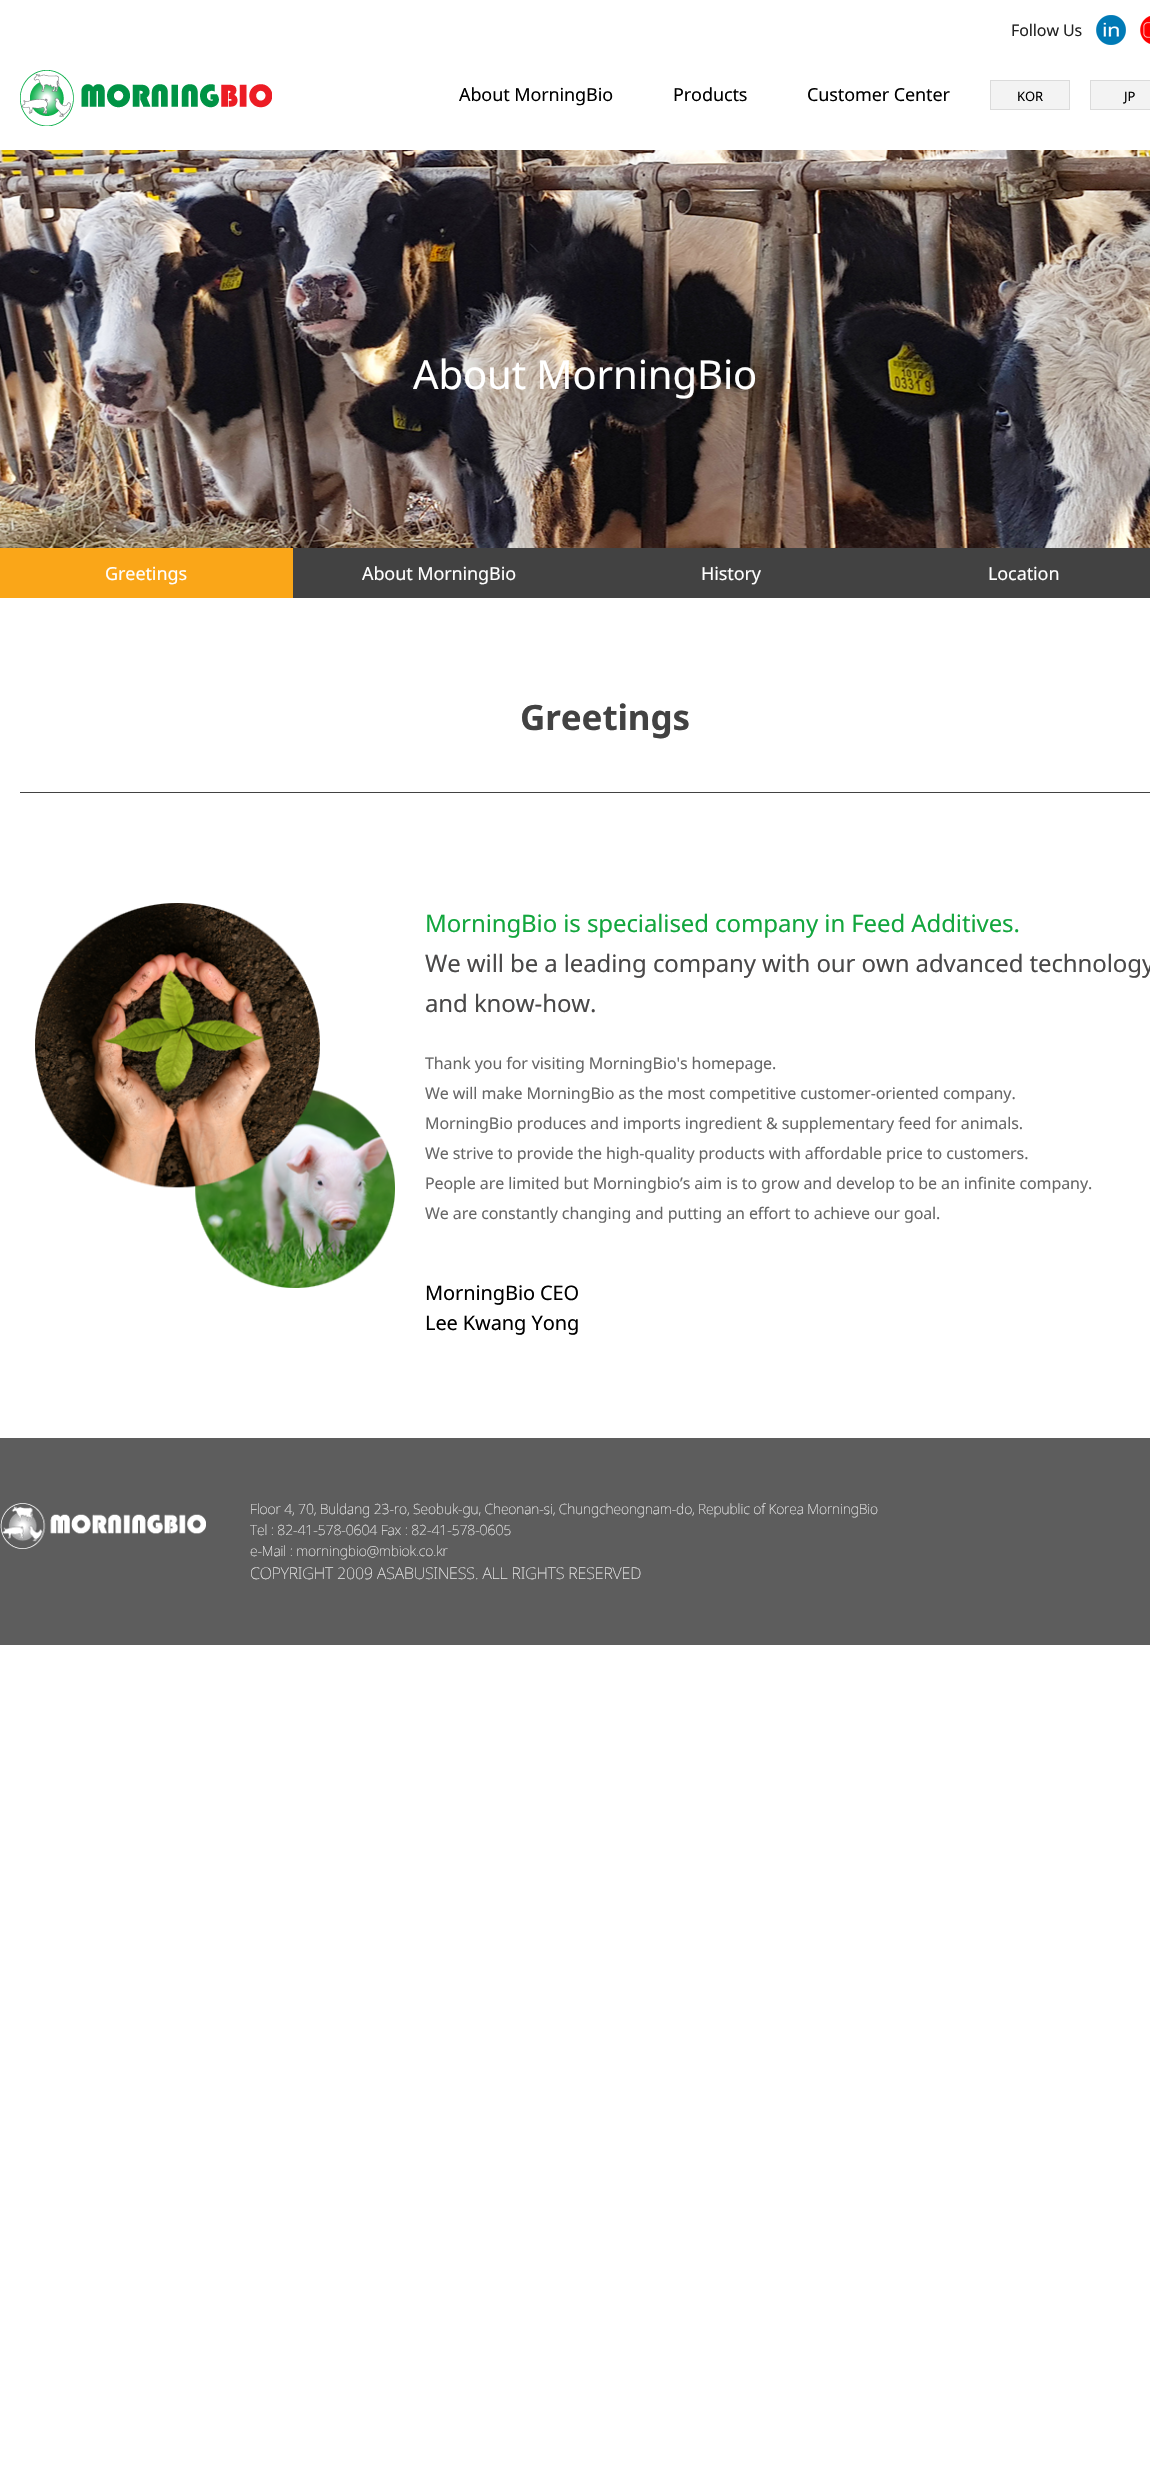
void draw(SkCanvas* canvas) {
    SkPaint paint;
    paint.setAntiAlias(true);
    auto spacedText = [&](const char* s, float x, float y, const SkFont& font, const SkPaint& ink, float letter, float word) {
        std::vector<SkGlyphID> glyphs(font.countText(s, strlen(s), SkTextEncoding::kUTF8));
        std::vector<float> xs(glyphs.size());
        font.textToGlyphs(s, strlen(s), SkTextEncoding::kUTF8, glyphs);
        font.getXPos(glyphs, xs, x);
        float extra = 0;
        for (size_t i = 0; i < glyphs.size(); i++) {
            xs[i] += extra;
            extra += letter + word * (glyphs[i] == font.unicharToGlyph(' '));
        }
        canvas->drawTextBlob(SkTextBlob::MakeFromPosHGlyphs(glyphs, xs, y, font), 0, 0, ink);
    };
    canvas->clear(0xFFFFFFFF);
    SkFont font1(fontMgr->matchFamilyStyle("Noto Sans", SkFontStyle::Normal()), 16);
    font1.setSubpixel(true);
    paint.setColor(0xFF222222);
    spacedText("Follow Us", 1011, 36, font1, paint, -0.1f, 0);
    canvas->drawImageRect(SkImages::DeferredFromEncodedData(SkData::MakeFromFileName("img1.png")), SkRect::MakeXYWH(1096, 15, 30, 30), SkSamplingOptions());
    canvas->drawImageRect(SkImages::DeferredFromEncodedData(SkData::MakeFromFileName("img2.png")), SkRect::MakeXYWH(1140, 16, 10, 28), SkSamplingOptions());
    canvas->drawImageRect(SkImages::DeferredFromEncodedData(SkData::MakeFromFileName("img3.png")), SkRect::MakeXYWH(20, 70, 252, 56), SkSamplingOptions());
    SkFont font2(fontMgr->matchFamilyStyle("Noto Sans", SkFontStyle::Normal()), 18);
    font2.setSubpixel(true);
    paint.setColor(0xFF000000);
    spacedText("About MorningBio", 459, 101, font2, paint, -0.1f, 0);
    spacedText("Products", 673, 101, font2, paint, -0.1f, 0);
    spacedText("Customer Center", 807, 101, font2, paint, -0.1f, 0);
    paint.setColor(0xFFF3F3F3);
    canvas->drawRect(SkRect::MakeXYWH(990.5f, 80.5f, 79, 29), paint);
    paint.setStyle(SkPaint::kStroke_Style);
    paint.setStrokeWidth(1);
    paint.setColor(0xFFDBDBDB);
    canvas->drawRect(SkRect::MakeXYWH(990.5f, 80.5f, 79, 29), paint);
    SkFont font3(fontMgr->matchFamilyStyle("Noto Sans", SkFontStyle::Normal()), 13);
    font3.setSubpixel(true);
    paint.setStyle(SkPaint::kFill_Style);
    paint.setColor(0xFF000000);
    spacedText("KOR", 1017, 101, font3, paint, -0.1f, 0);
    paint.setColor(0xFFF3F3F3);
    canvas->drawRect(SkRect::MakeXYWH(1090.5f, 80.5f, 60, 29), paint);
    paint.setStyle(SkPaint::kStroke_Style);
    paint.setColor(0xFFDBDBDB);
    canvas->drawRect(SkRect::MakeXYWH(1090.5f, 80.5f, 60, 29), paint);
    paint.setStyle(SkPaint::kFill_Style);
    paint.setColor(0xFF000000);
    spacedText("JP", 1124, 101, font3, paint, -0.1f, 0);
    canvas->drawImageRect(SkImages::DeferredFromEncodedData(SkData::MakeFromFileName("img4.png")), SkRect::MakeXYWH(0, 150, 1150, 398), SkSamplingOptions());
    SkFont font4(fontMgr->matchFamilyStyle("Noto Sans", SkFontStyle::Normal()), 40);
    font4.setSubpixel(true);
    paint.setColor(0xFFFFFFFF);
    spacedText("About MorningBio", 413, 389, font4, paint, -0.1f, 0);
    paint.setColor(0xFFFAA618);
    canvas->drawRect(SkRect::MakeXYWH(0, 548, 293, 50), paint);
    paint.setColor(0xFFFFFFFF);
    spacedText("Greetings", 105, 580, font2, paint, -0.1f, 0);
    paint.setColor(0xFF424242);
    canvas->drawRect(SkRect::MakeXYWH(293, 548, 857, 50), paint);
    paint.setColor(0xFFFFFFFF);
    spacedText("About MorningBio", 362, 580, font2, paint, -0.1f, 0);
    spacedText("History", 701, 580, font2, paint, -0.1f, 0);
    spacedText("Location", 988, 580, font2, paint, -0.1f, 0);
    paint.setColor(0xFF424242);
    canvas->drawRect(SkRect::MakeXYWH(20, 792, 1130, 1), paint);
    SkFont font5(fontMgr->matchFamilyStyle("Noto Sans", SkFontStyle::Bold()), 35);
    font5.setSubpixel(true);
    spacedText("Greetings", 520, 730, font5, paint, -0.1f, 0);
    canvas->drawImageRect(SkImages::DeferredFromEncodedData(SkData::MakeFromFileName("img5.png")), SkRect::MakeXYWH(35, 903, 360, 385), SkSamplingOptions());
    SkFont font6(fontMgr->matchFamilyStyle("Noto Sans", SkFontStyle::Normal()), 24);
    font6.setSubpixel(true);
    paint.setColor(0xFF12A63D);
    spacedText("MorningBio is specialised company in Feed Additives.", 425, 932, font6, paint, -0.1f, 0);
    paint.setColor(0xFF494848);
    spacedText("We will be a leading company with our own advanced technology", 425, 972, font6, paint, -0.1f, 0);
    spacedText("and know-how.", 425, 1012, font6, paint, -0.1f, 0);
    paint.setColor(0xFF676767);
    spacedText("Thank you for visiting MorningBio's homepage.", 425, 1069, font1, paint, -0.1f, 0);
    spacedText("We will make MorningBio as the most competitive customer-oriented company.", 425, 1099, font1, paint, -0.1f, 0);
    spacedText("MorningBio produces and imports ingredient & supplementary feed for animals.", 425, 1129, font1, paint, -0.1f, 0);
    spacedText("We strive to provide the high-quality products with affordable price to customers.", 425, 1159, font1, paint, -0.1f, 0);
    spacedText("People are limited but Morningbio’s aim is to grow and develop to be an infinite company.", 425, 1189, font1, paint, -0.1f, 0);
    spacedText("We are constantly changing and putting an effort to achieve our goal.", 425, 1219, font1, paint, -0.1f, 0);
    SkFont font7(fontMgr->matchFamilyStyle("Noto Sans", SkFontStyle::Normal()), 20);
    font7.setSubpixel(true);
    paint.setColor(0xFF000000);
    spacedText("MorningBio CEO", 425, 1300, font7, paint, -0.1f, 0);
    spacedText("Lee Kwang Yong", 425, 1330, font7, paint, -0.1f, 0);
    paint.setColor(0xFF5D5D5D);
    canvas->drawRect(SkRect::MakeXYWH(0, 1438, 1150, 207), paint);
    canvas->drawImageRect(SkImages::DeferredFromEncodedData(SkData::MakeFromFileName("img6.png")), SkRect::MakeXYWH(0, 1503, 206, 46), SkSamplingOptions());
    SkFont font8(fontMgr->matchFamilyStyle("Noto Sans", SkFontStyle(100, SkFontStyle::kNormal_Width, SkFontStyle::kUpright_Slant)), 14);
    font8.setSubpixel(true);
    paint.setColor(0xFFFFFFFF);
    spacedText("Floor 4, 70, Buldang 23-ro, Seobuk-gu, Cheonan-si, Chungcheongnam-do, Republic of Korea MorningBio", 250, 1514, font8, paint, -0.1f, 0);
    spacedText("Tel : 82-41-578-0604 Fax : 82-41-578-0605", 250, 1535, font8, paint, -0.1f, 0);
    spacedText("e-Mail : morningbio@mbiok.co.kr", 250, 1556, font8, paint, -0.1f, 0);
    SkFont font9(fontMgr->matchFamilyStyle("Noto Sans", SkFontStyle(100, SkFontStyle::kNormal_Width, SkFontStyle::kUpright_Slant)), 16);
    font9.setSubpixel(true);
    spacedText("COPYRIGHT 2009 ASABUSINESS. ALL RIGHTS RESERVED", 250, 1579, font9, paint, -0.1f, 0);
}
